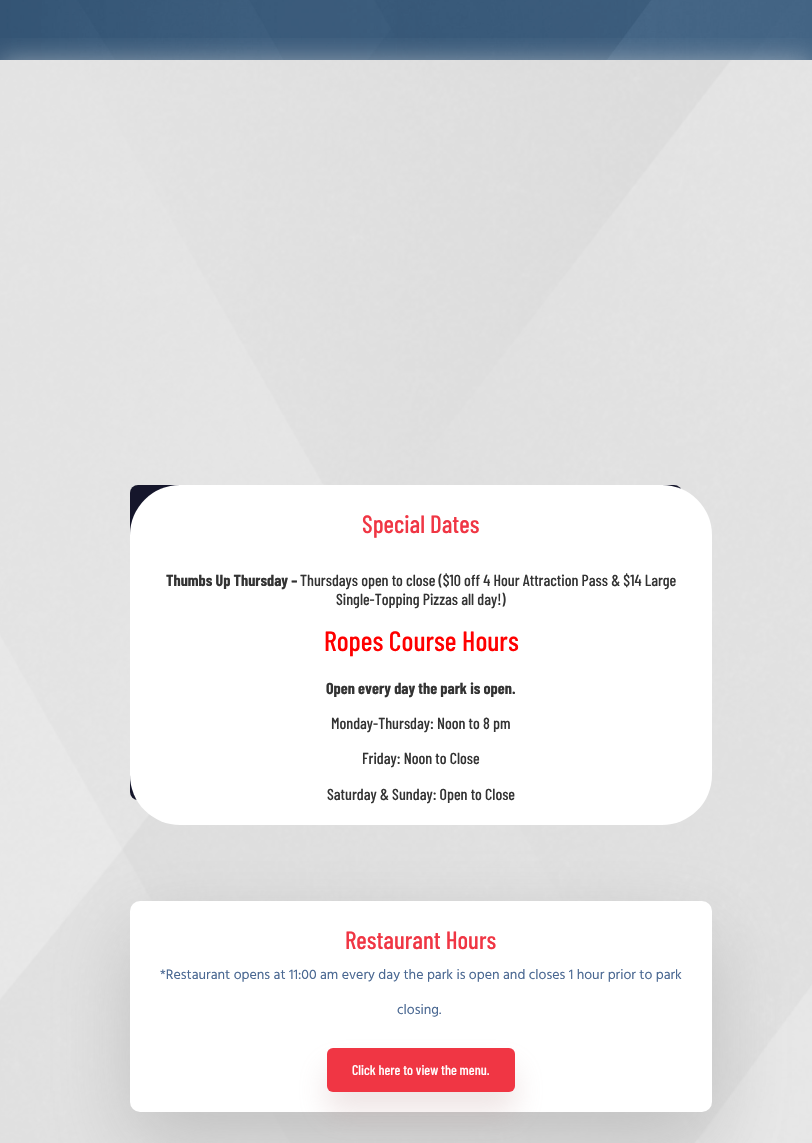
void draw(SkCanvas* canvas) {
    SkPaint paint;
    paint.setAntiAlias(true);
    canvas->clear(0xFFFFFFFF);
    canvas->drawImageRect(SkImages::DeferredFromEncodedData(SkData::MakeFromFileName("img1.png")), SkRect::MakeXYWH(0, 0, 812, 60), SkSamplingOptions());
    canvas->drawImageRect(SkImages::DeferredFromEncodedData(SkData::MakeFromFileName("img2.png")), SkRect::MakeXYWH(0, 60, 812, 1083), SkSamplingOptions());
    canvas->save();
    canvas->clipRect(SkRect::MakeXYWH(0, 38, 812, 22));
    paint.setColor(0x80EAEAEA);
    paint.setMaskFilter(SkMaskFilter::MakeBlur(kNormal_SkBlurStyle, 12.5f));
    canvas->drawRect(SkRect::MakeXYWH(0, 60, 812, 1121), paint);
    paint.setMaskFilter(nullptr);
    canvas->restore();
    paint.setColor(0xFF15162B);
    canvas->drawRoundRect(SkRect::MakeXYWH(130, 485, 552, 315), 8, 8, paint);
    paint.setColor(0xFFFFFFFF);
    canvas->drawRoundRect(SkRect::MakeXYWH(130, 485, 582, 340), 50, 50, paint);
    SkFont font1(fontMgr->matchFamilyStyle("Barlow Condensed", SkFontStyle(500, SkFontStyle::kNormal_Width, SkFontStyle::kUpright_Slant)), 25);
    font1.setSubpixel(true);
    paint.setColor(0xFFF03644);
    canvas->drawString("Special Dates", 362, 533, font1, paint);
    SkFont font2(fontMgr->matchFamilyStyle("Barlow Condensed", SkFontStyle::Bold()), 16);
    font2.setSubpixel(true);
    paint.setColor(0xFF333333);
    canvas->drawString("Thumbs Up Thursday –", 166, 586, font2, paint);
    SkFont font3(fontMgr->matchFamilyStyle("Barlow Condensed", SkFontStyle(500, SkFontStyle::kNormal_Width, SkFontStyle::kUpright_Slant)), 16);
    font3.setSubpixel(true);
    canvas->drawString("Thursdays open to close ($10 off 4 Hour Attraction Pass & $14 Large", 300, 586, font3, paint);
    canvas->drawString("Single-Topping Pizzas all day!)", 336, 605, font3, paint);
    SkFont font4(fontMgr->matchFamilyStyle("Barlow Condensed", SkFontStyle(500, SkFontStyle::kNormal_Width, SkFontStyle::kUpright_Slant)), 28);
    font4.setSubpixel(true);
    paint.setColor(0xFFFF0000);
    canvas->drawString("Ropes Course Hours", 324, 651, font4, paint);
    paint.setColor(0xFF333333);
    canvas->drawString("Open every day the park is open.", 326, 694, font2, paint);
    canvas->drawString("Monday-Thursday: Noon to 8 pm", 331, 729, font3, paint);
    canvas->drawString("Friday: Noon to Close", 362, 764, font3, paint);
    canvas->drawString("Saturday & Sunday: Open to Close", 327, 800, font3, paint);
    paint.setColor(0xFCBFBFBF);
    paint.setMaskFilter(SkMaskFilter::MakeBlur(kNormal_SkBlurStyle, 40));
    canvas->drawRoundRect(SkRect::MakeXYWH(130, 931, 582, 211), 10, 10, paint);
    paint.setMaskFilter(nullptr);
    paint.setColor(0xFFFFFFFF);
    canvas->drawRoundRect(SkRect::MakeXYWH(130, 901, 582, 211), 10, 10, paint);
    paint.setColor(0xFFF03644);
    canvas->drawString("Restaurant Hours", 345, 949, font1, paint);
    SkFont font5(fontMgr->matchFamilyStyle("Hind Madurai", SkFontStyle::Normal()), 14);
    font5.setSubpixel(true);
    paint.setColor(0xFF4A6892);
    canvas->drawString("*Restaurant opens at 11:00 am every day the park is open and closes 1 hour prior to park", 160, 979, font5, paint);
    canvas->drawString("closing.", 397, 1014, font5, paint);
    paint.setColor(0x40BD9393);
    paint.setMaskFilter(SkMaskFilter::MakeBlur(kNormal_SkBlurStyle, 15));
    canvas->drawRoundRect(SkRect::MakeXYWH(327, 1068, 188, 44), 6, 6, paint);
    paint.setMaskFilter(nullptr);
    paint.setColor(0xFFF03644);
    canvas->drawRoundRect(SkRect::MakeXYWH(327, 1048, 188, 44), 6, 6, paint);
    SkFont font6(fontMgr->matchFamilyStyle("Barlow Condensed", SkFontStyle(500, SkFontStyle::kNormal_Width, SkFontStyle::kUpright_Slant)), 14);
    font6.setSubpixel(true);
    paint.setColor(0xFFFFFFFF);
    canvas->drawString("Click here to view the menu.", 352, 1075, font6, paint);
}
